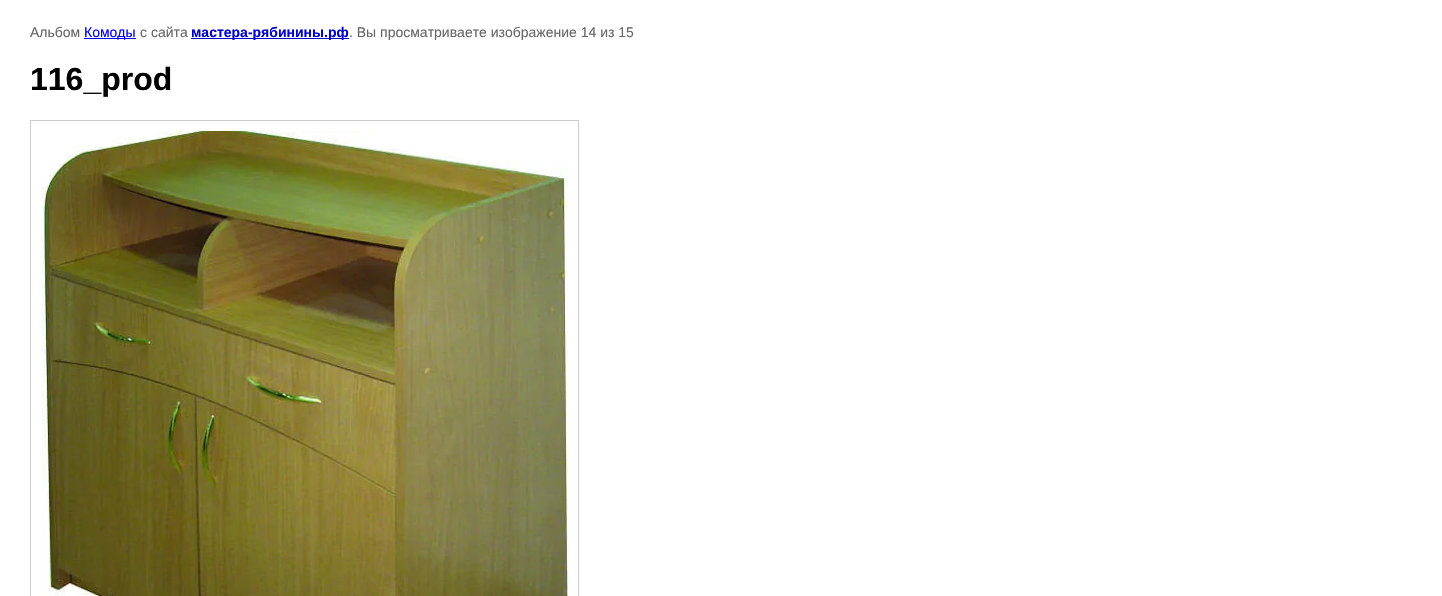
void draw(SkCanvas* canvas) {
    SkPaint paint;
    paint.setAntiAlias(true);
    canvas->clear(0xFFFFFFFF);
    SkFont font1(fontMgr->matchFamilyStyle("Liberation Sans", SkFontStyle::Normal()), 14);
    font1.setSubpixel(true);
    paint.setColor(0xFF666666);
    canvas->drawString("Альбом", 30, 37, font1, paint);
    paint.setColor(0xFF0000FF);
    canvas->drawRect(SkRect::MakeXYWH(84, 38, 52, 1), paint);
    canvas->drawString("Комоды", 84, 37, font1, paint);
    paint.setColor(0xFF666666);
    canvas->drawString("с сайта", 140, 37, font1, paint);
    paint.setColor(0xFF0000CC);
    canvas->drawRect(SkRect::MakeXYWH(191, 38, 158, 1), paint);
    SkFont font2(fontMgr->matchFamilyStyle("Liberation Sans", SkFontStyle::Bold()), 14);
    font2.setSubpixel(true);
    canvas->drawString("мастера-рябинины.рф", 191, 37, font2, paint);
    paint.setColor(0xFF666666);
    canvas->drawString(". Вы просматриваете изображение 14 из 15", 349, 37, font1, paint);
    SkFont font3(fontMgr->matchFamilyStyle("Liberation Sans", SkFontStyle::Bold()), 32);
    font3.setSubpixel(true);
    paint.setColor(0xFF000000);
    canvas->drawString("116_prod", 30, 90, font3, paint);
    paint.setStyle(SkPaint::kStroke_Style);
    paint.setStrokeWidth(1);
    paint.setColor(0xFFCCCCCC);
    canvas->drawRect(SkRect::MakeXYWH(30.5f, 120.5f, 548, 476), paint);
    canvas->drawImageRect(SkImages::DeferredFromEncodedData(SkData::MakeFromFileName("img1.png")), SkRect::MakeXYWH(41, 131, 527, 465), SkSamplingOptions());
}
